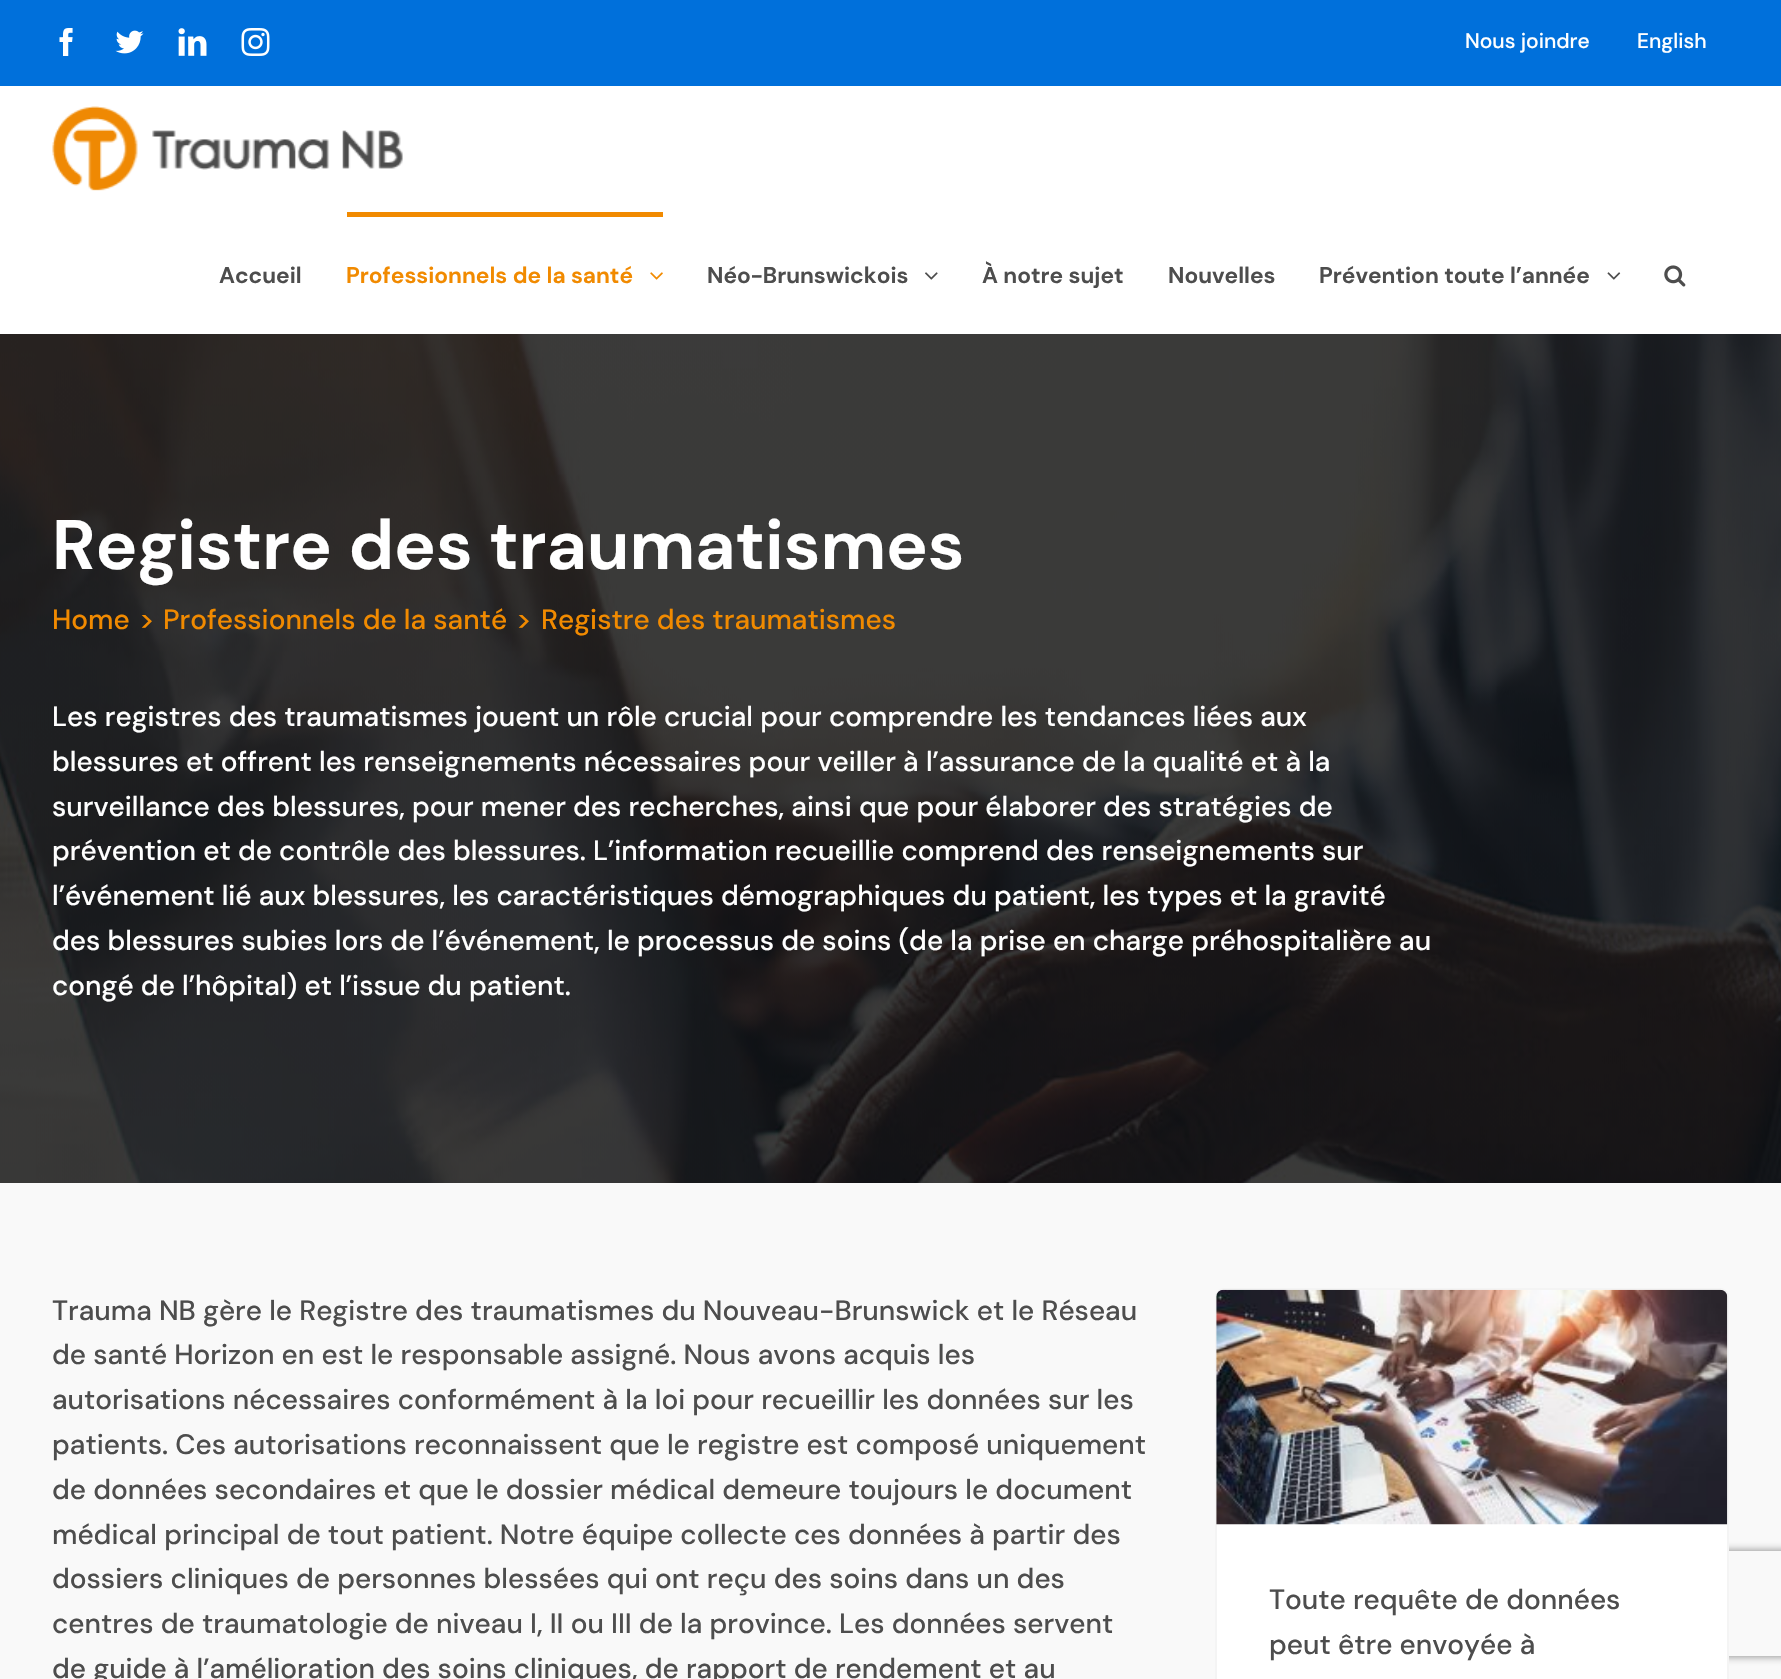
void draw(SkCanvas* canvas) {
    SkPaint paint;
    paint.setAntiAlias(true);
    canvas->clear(0xFFFFFFFF);
    paint.setColor(0xFF0070DB);
    canvas->drawRect(SkRect::MakeXYWH(0, 0, 1781, 86), paint);
    canvas->drawImageRect(SkImages::DeferredFromEncodedData(SkData::MakeFromFileName("img1.png")), SkRect::MakeXYWH(59, 28, 14, 28), SkSamplingOptions());
    canvas->drawImageRect(SkImages::DeferredFromEncodedData(SkData::MakeFromFileName("img2.png")), SkRect::MakeXYWH(115, 30, 29, 24), SkSamplingOptions());
    canvas->drawImageRect(SkImages::DeferredFromEncodedData(SkData::MakeFromFileName("img3.png")), SkRect::MakeXYWH(178, 28, 29, 28), SkSamplingOptions());
    canvas->drawImageRect(SkImages::DeferredFromEncodedData(SkData::MakeFromFileName("img4.png")), SkRect::MakeXYWH(241, 28, 29, 28), SkSamplingOptions());
    SkFont font1(fontMgr->matchFamilyStyle("DM Sans", SkFontStyle(500, SkFontStyle::kNormal_Width, SkFontStyle::kUpright_Slant)), 21);
    font1.setSubpixel(true);
    paint.setColor(0xFFFFFFFF);
    canvas->drawString("Nous joindre", 1465, 48, font1, paint);
    canvas->drawString("English", 1637, 48, font1, paint);
    canvas->drawImageRect(SkImages::DeferredFromEncodedData(SkData::MakeFromFileName("img5.png")), SkRect::MakeXYWH(52, 106, 351, 85), SkSamplingOptions());
    SkFont font2(fontMgr->matchFamilyStyle("DM Sans", SkFontStyle::Bold()), 22.75f);
    font2.setSubpixel(true);
    paint.setColor(0xFF4D4D4D);
    canvas->drawString("Accueil", 219, 283, font2, paint);
    paint.setColor(0xFFF18A00);
    canvas->drawRect(SkRect::MakeXYWH(347, 212, 316, 5), paint);
    canvas->drawString("Professionnels de la santé", 346, 283, font2, paint);
    canvas->drawImageRect(SkImages::DeferredFromEncodedData(SkData::MakeFromFileName("img6.png")), SkRect::MakeXYWH(650, 272, 13, 8), SkSamplingOptions());
    paint.setColor(0xFF4D4D4D);
    canvas->drawString("Néo-Brunswickois", 707, 283, font2, paint);
    canvas->drawImageRect(SkImages::DeferredFromEncodedData(SkData::MakeFromFileName("img7.png")), SkRect::MakeXYWH(925, 272, 13, 8), SkSamplingOptions());
    canvas->drawString("À notre sujet", 982, 283, font2, paint);
    canvas->drawString("Nouvelles", 1168, 283, font2, paint);
    canvas->drawString("Prévention toute l’année", 1319, 283, font2, paint);
    canvas->drawImageRect(SkImages::DeferredFromEncodedData(SkData::MakeFromFileName("img8.png")), SkRect::MakeXYWH(1607, 272, 14, 8), SkSamplingOptions());
    canvas->drawImageRect(SkImages::DeferredFromEncodedData(SkData::MakeFromFileName("img9.png")), SkRect::MakeXYWH(1664, 265, 22, 22), SkSamplingOptions());
    canvas->drawImageRect(SkImages::DeferredFromEncodedData(SkData::MakeFromFileName("img10.png")), SkRect::MakeXYWH(0, 334, 1781, 849), SkSamplingOptions());
    SkFont font3(fontMgr->matchFamilyStyle("DM Sans", SkFontStyle::Bold()), 70);
    font3.setSubpixel(true);
    paint.setColor(0xFFFFFFFF);
    canvas->drawString("Registre des traumatismes", 52, 569, font3, paint);
    SkFont font4(fontMgr->matchFamilyStyle("DM Sans", SkFontStyle(500, SkFontStyle::kNormal_Width, SkFontStyle::kUpright_Slant)), 28);
    font4.setSubpixel(true);
    paint.setColor(0xFFF18A00);
    canvas->drawString("Home", 52, 629, font4, paint);
    canvas->drawString(">", 139, 629, font4, paint);
    canvas->drawString("Professionnels de la santé", 163, 629, font4, paint);
    canvas->drawString(">", 516, 629, font4, paint);
    canvas->drawString("Registre des traumatismes", 541, 629, font4, paint);
    paint.setColor(0xFFFFFFFF);
    canvas->drawString("Les registres des traumatismes jouent un rôle crucial pour comprendre les tendances liées aux", 52, 726, font4, paint);
    canvas->drawString("blessures et offrent les renseignements nécessaires pour veiller à l’assurance de la qualité et à la", 52, 771, font4, paint);
    canvas->drawString("surveillance des blessures, pour mener des recherches, ainsi que pour élaborer des stratégies de", 52, 816, font4, paint);
    canvas->drawString("prévention et de contrôle des blessures. L’information recueillie comprend des renseignements sur", 52, 860, font4, paint);
    canvas->drawString("l’événement lié aux blessures, les caractéristiques démographiques du patient, les types et la gravité", 52, 905, font4, paint);
    canvas->drawString("des blessures subies lors de l’événement, le processus de soins (de la prise en charge préhospitalière au", 52, 950, font4, paint);
    canvas->drawString("congé de l’hôpital) et l’issue du patient.", 52, 995, font4, paint);
    paint.setColor(0xFFF9F9F9);
    canvas->drawRect(SkRect::MakeXYWH(0, 1183, 1781, 496), paint);
    paint.setColor(0xFF4D4D4D);
    canvas->drawString("Trauma NB gère le Registre des traumatismes du Nouveau-Brunswick et le Réseau", 52, 1320, font4, paint);
    canvas->drawString("de santé Horizon en est le responsable assigné. Nous avons acquis les", 52, 1364, font4, paint);
    canvas->drawString("autorisations nécessaires conformément à la loi pour recueillir les données sur les", 52, 1409, font4, paint);
    canvas->drawString("patients. Ces autorisations reconnaissent que le registre est composé uniquement", 52, 1454, font4, paint);
    canvas->drawString("de données secondaires et que le dossier médical demeure toujours le document", 52, 1499, font4, paint);
    canvas->drawString("médical principal de tout patient. Notre équipe collecte ces données à partir des", 52, 1544, font4, paint);
    canvas->drawString("dossiers cliniques de personnes blessées qui ont reçu des soins dans un des", 52, 1588, font4, paint);
    canvas->drawString("centres de traumatologie de niveau I, II ou III de la province. Les données servent", 52, 1633, font4, paint);
    canvas->drawString("de guide à l’amélioration des soins cliniques, de rapport de rendement et au", 52, 1678, font4, paint);
    canvas->save();
    canvas->clipPath(SkPathBuilder(SkPathFillType::kEvenOdd).moveTo(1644, 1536).lineTo(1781, 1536).lineTo(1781, 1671).lineTo(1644, 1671).close().moveTo(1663, 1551).lineTo(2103, 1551).cubicTo(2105, 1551, 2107, 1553, 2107, 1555).lineTo(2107, 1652).cubicTo(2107, 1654, 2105, 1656, 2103, 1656).lineTo(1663, 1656).cubicTo(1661, 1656, 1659, 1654, 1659, 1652).lineTo(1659, 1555).cubicTo(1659, 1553, 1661, 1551, 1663, 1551).close().detach(), true);
    paint.setColor(0xFF808080);
    paint.setMaskFilter(SkMaskFilter::MakeBlur(kNormal_SkBlurStyle, 4.5f));
    canvas->drawRoundRect(SkRect::MakeXYWH(1659, 1551, 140, 105), 4, 4, paint);
    paint.setMaskFilter(nullptr);
    canvas->restore();
    paint.setColor(0xFFFFFFFF);
    canvas->drawRoundRect(SkRect::MakeXYWH(1216, 1289, 512, 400), 8, 8, paint);
    paint.setStyle(SkPaint::kStroke_Style);
    paint.setStrokeWidth(2);
    paint.setColor(0xFFF4F4F4);
    canvas->drawRoundRect(SkRect::MakeXYWH(1216, 1289, 512, 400), 8, 8, paint);
    canvas->drawImageRect(SkImages::DeferredFromEncodedData(SkData::MakeFromFileName("img11.png")), SkRect::MakeXYWH(1216, 1289, 512, 236), SkSamplingOptions());
    paint.setStyle(SkPaint::kFill_Style);
    paint.setColor(0xFF4D4D4D);
    canvas->drawString("Toute requête de données", 1269, 1609, font4, paint);
    canvas->drawString("peut être envoyée à", 1269, 1654, font4, paint);
}
